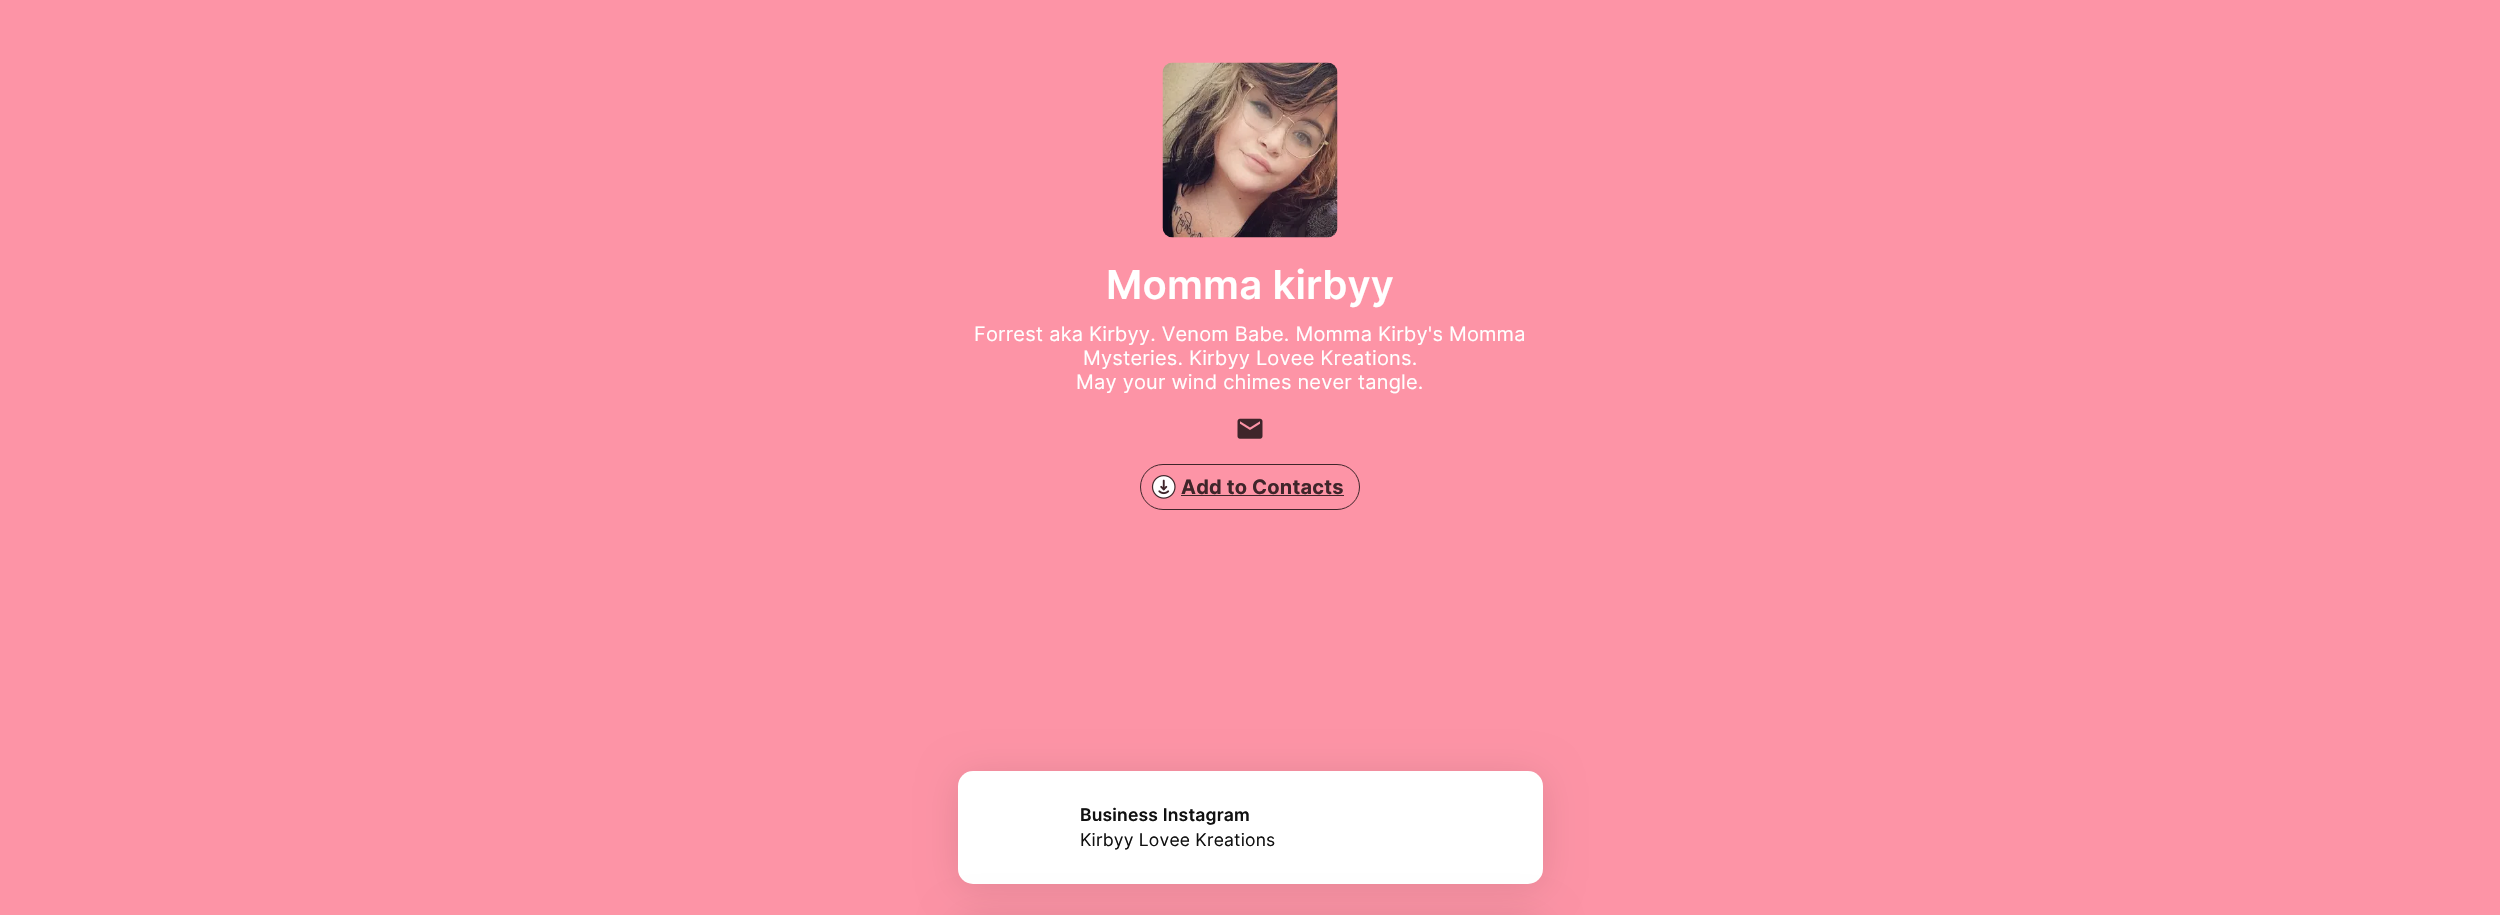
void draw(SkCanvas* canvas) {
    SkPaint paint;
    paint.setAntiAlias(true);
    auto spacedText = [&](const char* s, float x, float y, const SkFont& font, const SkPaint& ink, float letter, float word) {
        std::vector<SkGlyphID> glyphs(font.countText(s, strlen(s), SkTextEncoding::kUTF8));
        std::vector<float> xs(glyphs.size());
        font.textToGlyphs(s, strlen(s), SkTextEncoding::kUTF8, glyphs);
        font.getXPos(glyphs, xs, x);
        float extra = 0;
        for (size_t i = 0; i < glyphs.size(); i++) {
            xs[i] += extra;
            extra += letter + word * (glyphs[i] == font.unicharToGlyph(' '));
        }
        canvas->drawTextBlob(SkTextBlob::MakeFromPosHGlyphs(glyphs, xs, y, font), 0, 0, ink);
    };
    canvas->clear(0xFFFD94A6);
    canvas->drawImageRect(SkImages::DeferredFromEncodedData(SkData::MakeFromFileName("img1.png")), SkRect::MakeXYWH(1162, 62, 176, 176), SkSamplingOptions());
    SkFont font1(fontMgr->matchFamilyStyle("Inter", SkFontStyle(600, SkFontStyle::kNormal_Width, SkFontStyle::kUpright_Slant)), 40);
    font1.setSubpixel(true);
    paint.setColor(0xFFFFFFFF);
    spacedText("Momma kirbyy", 1106, 299, font1, paint, 0.2f, 0);
    SkFont font2(fontMgr->matchFamilyStyle("Inter", SkFontStyle::Normal()), 20);
    font2.setSubpixel(true);
    spacedText("Forrest aka Kirbyy. Venom Babe. Momma Kirby's Momma", 974, 341, font2, paint, 0.2f, 0);
    spacedText("Mysteries. Kirbyy Lovee Kreations.", 1083, 365, font2, paint, 0.2f, 0);
    spacedText("May your wind chimes never tangle.", 1076, 389, font2, paint, 0.2f, 0);
    canvas->drawImageRect(SkImages::DeferredFromEncodedData(SkData::MakeFromFileName("img2.png")), SkRect::MakeXYWH(1237, 418, 26, 21), SkSamplingOptions());
    paint.setStyle(SkPaint::kStroke_Style);
    paint.setStrokeWidth(1);
    paint.setColor(0xFF3F252A);
    canvas->drawRoundRect(SkRect::MakeXYWH(1140.5f, 464.5f, 219, 45), 22.5f, 22.5f, paint);
    canvas->drawImageRect(SkImages::DeferredFromEncodedData(SkData::MakeFromFileName("img3.png")), SkRect::MakeXYWH(1151, 475, 25, 24), SkSamplingOptions());
    SkFont font3(fontMgr->matchFamilyStyle("Inter", SkFontStyle::Bold()), 20);
    font3.setSubpixel(true);
    paint.setStyle(SkPaint::kFill_Style);
    spacedText("Add to Contacts", 1181, 494, font3, paint, 0.2f, 0);
    canvas->drawRect(SkRect::MakeXYWH(1181, 495, 163, 1), paint);
    paint.setColor(0x1A000000);
    paint.setMaskFilter(SkMaskFilter::MakeBlur(kNormal_SkBlurStyle, 19));
    canvas->drawRoundRect(SkRect::MakeXYWH(958, 775, 585, 113), 15, 15, paint);
    paint.setMaskFilter(nullptr);
    paint.setColor(0xFFFFFFFF);
    canvas->drawRoundRect(SkRect::MakeXYWH(958, 771, 585, 113), 15, 15, paint);
    SkFont font4(fontMgr->matchFamilyStyle("Inter", SkFontStyle(600, SkFontStyle::kNormal_Width, SkFontStyle::kUpright_Slant)), 17.5f);
    font4.setSubpixel(true);
    paint.setColor(0xFF111111);
    spacedText("Business Instagram", 1080, 821, font4, paint, 0.2f, 0);
    SkFont font5(fontMgr->matchFamilyStyle("Inter", SkFontStyle::Normal()), 17.5f);
    font5.setSubpixel(true);
    spacedText("Kirbyy Lovee Kreations", 1080, 846, font5, paint, 0.2f, 0);
    paint.setColor(0x1A000000);
    paint.setMaskFilter(SkMaskFilter::MakeBlur(kNormal_SkBlurStyle, 19));
    canvas->drawRoundRect(SkRect::MakeXYWH(958, 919, 585, 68), 15, 15, paint);
    paint.setMaskFilter(nullptr);
}
